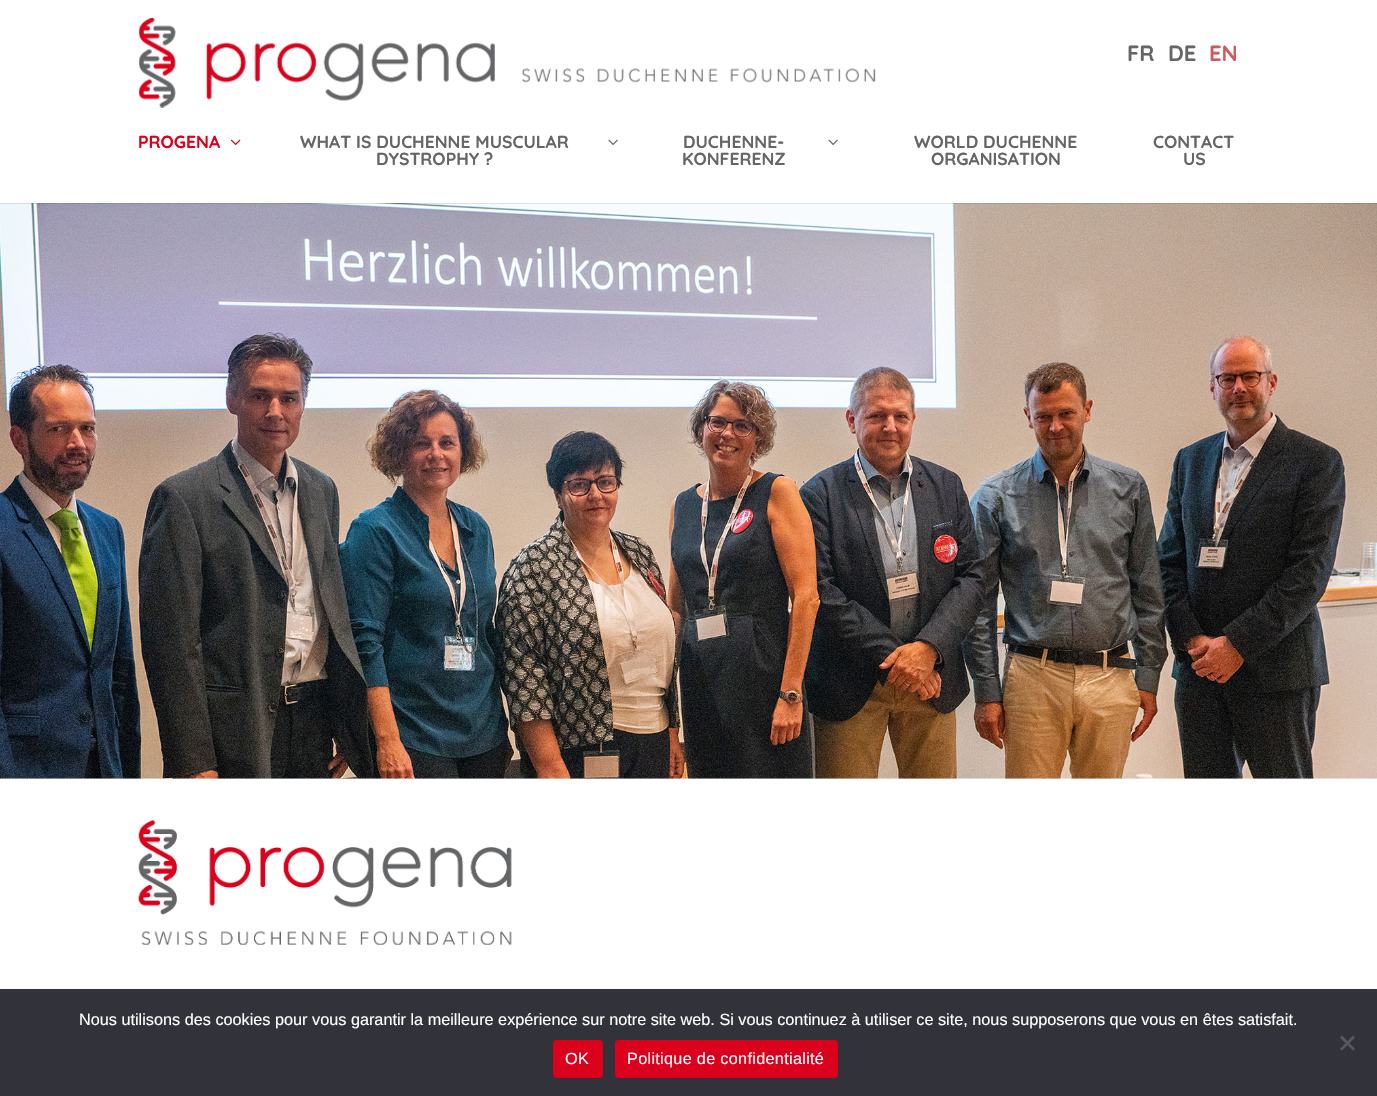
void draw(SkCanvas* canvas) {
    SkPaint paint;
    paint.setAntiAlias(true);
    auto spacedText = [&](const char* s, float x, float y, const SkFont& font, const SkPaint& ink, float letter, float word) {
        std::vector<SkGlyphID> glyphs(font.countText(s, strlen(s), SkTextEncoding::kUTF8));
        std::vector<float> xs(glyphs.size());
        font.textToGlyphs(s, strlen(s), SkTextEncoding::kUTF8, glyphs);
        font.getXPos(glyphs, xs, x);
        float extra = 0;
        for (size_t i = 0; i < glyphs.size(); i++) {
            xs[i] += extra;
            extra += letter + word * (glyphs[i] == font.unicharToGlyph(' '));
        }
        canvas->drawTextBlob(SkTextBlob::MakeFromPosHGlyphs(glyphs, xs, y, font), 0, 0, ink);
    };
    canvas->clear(0xFFFFFFFF);
    canvas->drawImageRect(SkImages::DeferredFromEncodedData(SkData::MakeFromFileName("img4.png")), SkRect::MakeXYWH(0, 203, 1377, 576), SkSamplingOptions());
    paint.setColor(0x1A000000);
    canvas->drawPath(SkPathBuilder().moveTo(0, 202).lineTo(0, 204).lineTo(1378, 204).lineTo(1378, 1).lineTo(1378, 202).close().detach(), paint);
    paint.setColor(0xFFFFFFFF);
    canvas->drawRect(SkRect::MakeXYWH(0, 202, 1377, 1), paint);
    canvas->drawImageRect(SkImages::DeferredFromEncodedData(SkData::MakeFromFileName("img1.png")), SkRect::MakeXYWH(139, 18, 737, 90), SkSamplingOptions());
    SkFont font1(fontMgr->matchFamilyStyle("Quicksand", SkFontStyle::Bold()), 22);
    font1.setSubpixel(true);
    paint.setColor(0xFF666666);
    canvas->drawString("FR", 1127, 61, font1, paint);
    canvas->drawString("DE", 1168, 61, font1, paint);
    paint.setColor(0xFFCD5C5C);
    canvas->drawString("EN", 1209, 61, font1, paint);
    SkFont font2(fontMgr->matchFamilyStyle("Quicksand", SkFontStyle::Bold()), 17.5f);
    font2.setSubpixel(true);
    paint.setColor(0xFFDB001B);
    canvas->drawString("PROGENA", 138, 148, font2, paint);
    canvas->drawImageRect(SkImages::DeferredFromEncodedData(SkData::MakeFromFileName("img2.png")), SkRect::MakeXYWH(231, 139, 10, 6), SkSamplingOptions());
    paint.setColor(0xFF666666);
    canvas->drawString("WHAT IS DUCHENNE MUSCULAR", 300, 148, font2, paint);
    canvas->drawImageRect(SkImages::DeferredFromEncodedData(SkData::MakeFromFileName("img3.png")), SkRect::MakeXYWH(608, 139, 10, 6), SkSamplingOptions());
    canvas->drawString("DYSTROPHY ?", 376, 165, font2, paint);
    canvas->drawString("DUCHENNE-", 683, 148, font2, paint);
    canvas->drawImageRect(SkImages::DeferredFromEncodedData(SkData::MakeFromFileName("img3.png")), SkRect::MakeXYWH(828, 139, 10, 6), SkSamplingOptions());
    canvas->drawString("KONFERENZ", 682, 165, font2, paint);
    canvas->drawString("WORLD DUCHENNE", 914, 148, font2, paint);
    canvas->drawString("ORGANISATION", 931, 165, font2, paint);
    canvas->drawString("CONTACT", 1153, 148, font2, paint);
    canvas->drawString("US", 1183, 165, font2, paint);
    canvas->drawImageRect(SkImages::DeferredFromEncodedData(SkData::MakeFromFileName("img5.png")), SkRect::MakeXYWH(138, 820, 374, 125), SkSamplingOptions());
    paint.setColor(0xFF32323A);
    canvas->drawRect(SkRect::MakeXYWH(0, 989, 1377, 107), paint);
    SkFont font3(fontMgr->matchFamilyStyle("Liberation Sans", SkFontStyle::Normal()), 16.25f);
    font3.setSubpixel(true);
    paint.setColor(0xFFFFFFFF);
    canvas->drawString("Nous utilisons des cookies pour vous garantir la meilleure expérience sur notre site web. Si vous continuez à utiliser ce site, nous supposerons que vous en êtes satisfait.", 79, 1025, font3, paint);
    paint.setColor(0xFF59595D);
    canvas->drawPath(SkPathBuilder().moveTo(1353, 1035.5f).lineTo(1355, 1037.5f).lineTo(1342, 1050.5f).lineTo(1340, 1049).close().detach(), paint);
    canvas->drawPath(SkPathBuilder().moveTo(1340, 1037.5f).lineTo(1342, 1035.5f).lineTo(1355, 1049).lineTo(1353, 1050.5f).close().detach(), paint);
    paint.setColor(0xFFDB001B);
    canvas->drawRoundRect(SkRect::MakeXYWH(553, 1040, 50, 38), 4, 4, paint);
    paint.setColor(0xFFFFFFFF);
    spacedText("OK", 565, 1064, font3, paint, 0.3f, 0);
    paint.setColor(0xFFDB001B);
    canvas->drawRoundRect(SkRect::MakeXYWH(615, 1040, 223, 38), 4, 4, paint);
    paint.setColor(0xFFFFFFFF);
    spacedText("Politique de confidentialité", 627, 1064, font3, paint, 0.3f, 0);
}
